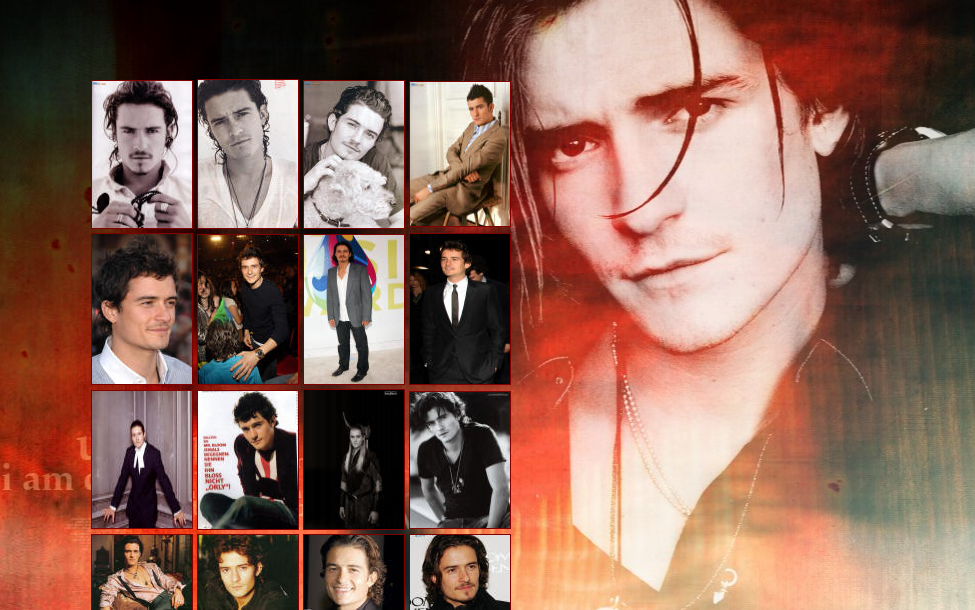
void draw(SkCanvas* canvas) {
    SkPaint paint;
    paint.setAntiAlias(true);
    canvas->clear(0xFFFFFFFF);
    canvas->drawImageRect(SkImages::DeferredFromEncodedData(SkData::MakeFromFileName("img1.png")), SkRect::MakeXYWH(0, 0, 975, 610), SkSamplingOptions());
    paint.setStyle(SkPaint::kStroke_Style);
    paint.setStrokeWidth(1);
    paint.setColor(0xFF800000);
    canvas->drawRect(SkRect::MakeXYWH(91.5f, 80.5f, 101, 148), paint);
    canvas->drawImageRect(SkImages::DeferredFromEncodedData(SkData::MakeFromFileName("img2.png")), SkRect::MakeXYWH(92, 81, 100, 147), SkSamplingOptions());
    canvas->drawRect(SkRect::MakeXYWH(197.5f, 79.5f, 101, 149), paint);
    canvas->drawImageRect(SkImages::DeferredFromEncodedData(SkData::MakeFromFileName("img3.png")), SkRect::MakeXYWH(198, 80, 100, 148), SkSamplingOptions());
    canvas->drawRect(SkRect::MakeXYWH(303.5f, 80.5f, 101, 148), paint);
    canvas->drawImageRect(SkImages::DeferredFromEncodedData(SkData::MakeFromFileName("img4.png")), SkRect::MakeXYWH(304, 81, 100, 147), SkSamplingOptions());
    canvas->drawRect(SkRect::MakeXYWH(409.5f, 81.5f, 101, 145), paint);
    canvas->drawImageRect(SkImages::DeferredFromEncodedData(SkData::MakeFromFileName("img5.png")), SkRect::MakeXYWH(410, 82, 100, 144), SkSamplingOptions());
    canvas->drawRect(SkRect::MakeXYWH(91.5f, 233.5f, 101, 151), paint);
    canvas->drawImageRect(SkImages::DeferredFromEncodedData(SkData::MakeFromFileName("img6.png")), SkRect::MakeXYWH(92, 234, 100, 150), SkSamplingOptions());
    canvas->drawRect(SkRect::MakeXYWH(197.5f, 234.5f, 101, 150), paint);
    canvas->drawImageRect(SkImages::DeferredFromEncodedData(SkData::MakeFromFileName("img7.png")), SkRect::MakeXYWH(198, 235, 100, 149), SkSamplingOptions());
    canvas->drawRect(SkRect::MakeXYWH(303.5f, 234.5f, 101, 150), paint);
    canvas->drawImageRect(SkImages::DeferredFromEncodedData(SkData::MakeFromFileName("img8.png")), SkRect::MakeXYWH(304, 235, 100, 149), SkSamplingOptions());
    canvas->drawRect(SkRect::MakeXYWH(409.5f, 233.5f, 101, 151), paint);
    canvas->drawImageRect(SkImages::DeferredFromEncodedData(SkData::MakeFromFileName("img9.png")), SkRect::MakeXYWH(410, 234, 100, 150), SkSamplingOptions());
    canvas->drawRect(SkRect::MakeXYWH(91.5f, 390.5f, 101, 138), paint);
    canvas->drawImageRect(SkImages::DeferredFromEncodedData(SkData::MakeFromFileName("img10.png")), SkRect::MakeXYWH(92, 391, 100, 137), SkSamplingOptions());
    canvas->drawRect(SkRect::MakeXYWH(197.5f, 390.5f, 101, 139), paint);
    canvas->drawImageRect(SkImages::DeferredFromEncodedData(SkData::MakeFromFileName("img11.png")), SkRect::MakeXYWH(198, 391, 100, 138), SkSamplingOptions());
    canvas->drawRect(SkRect::MakeXYWH(303.5f, 389.5f, 101, 140), paint);
    canvas->drawImageRect(SkImages::DeferredFromEncodedData(SkData::MakeFromFileName("img12.png")), SkRect::MakeXYWH(304, 390, 100, 139), SkSamplingOptions());
    canvas->drawRect(SkRect::MakeXYWH(409.5f, 391.5f, 101, 137), paint);
    canvas->drawImageRect(SkImages::DeferredFromEncodedData(SkData::MakeFromFileName("img13.png")), SkRect::MakeXYWH(410, 392, 100, 136), SkSamplingOptions());
    canvas->drawRect(SkRect::MakeXYWH(91.5f, 534.5f, 101, 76), paint);
    canvas->drawImageRect(SkImages::DeferredFromEncodedData(SkData::MakeFromFileName("img14.png")), SkRect::MakeXYWH(92, 535, 100, 75), SkSamplingOptions());
    canvas->drawRect(SkRect::MakeXYWH(197.5f, 534.5f, 101, 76), paint);
    canvas->drawImageRect(SkImages::DeferredFromEncodedData(SkData::MakeFromFileName("img15.png")), SkRect::MakeXYWH(198, 535, 100, 75), SkSamplingOptions());
    canvas->drawRect(SkRect::MakeXYWH(303.5f, 534.5f, 101, 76), paint);
    canvas->drawImageRect(SkImages::DeferredFromEncodedData(SkData::MakeFromFileName("img16.png")), SkRect::MakeXYWH(304, 535, 100, 75), SkSamplingOptions());
    canvas->drawRect(SkRect::MakeXYWH(409.5f, 534.5f, 101, 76), paint);
    canvas->drawImageRect(SkImages::DeferredFromEncodedData(SkData::MakeFromFileName("img17.png")), SkRect::MakeXYWH(410, 535, 100, 75), SkSamplingOptions());
}
